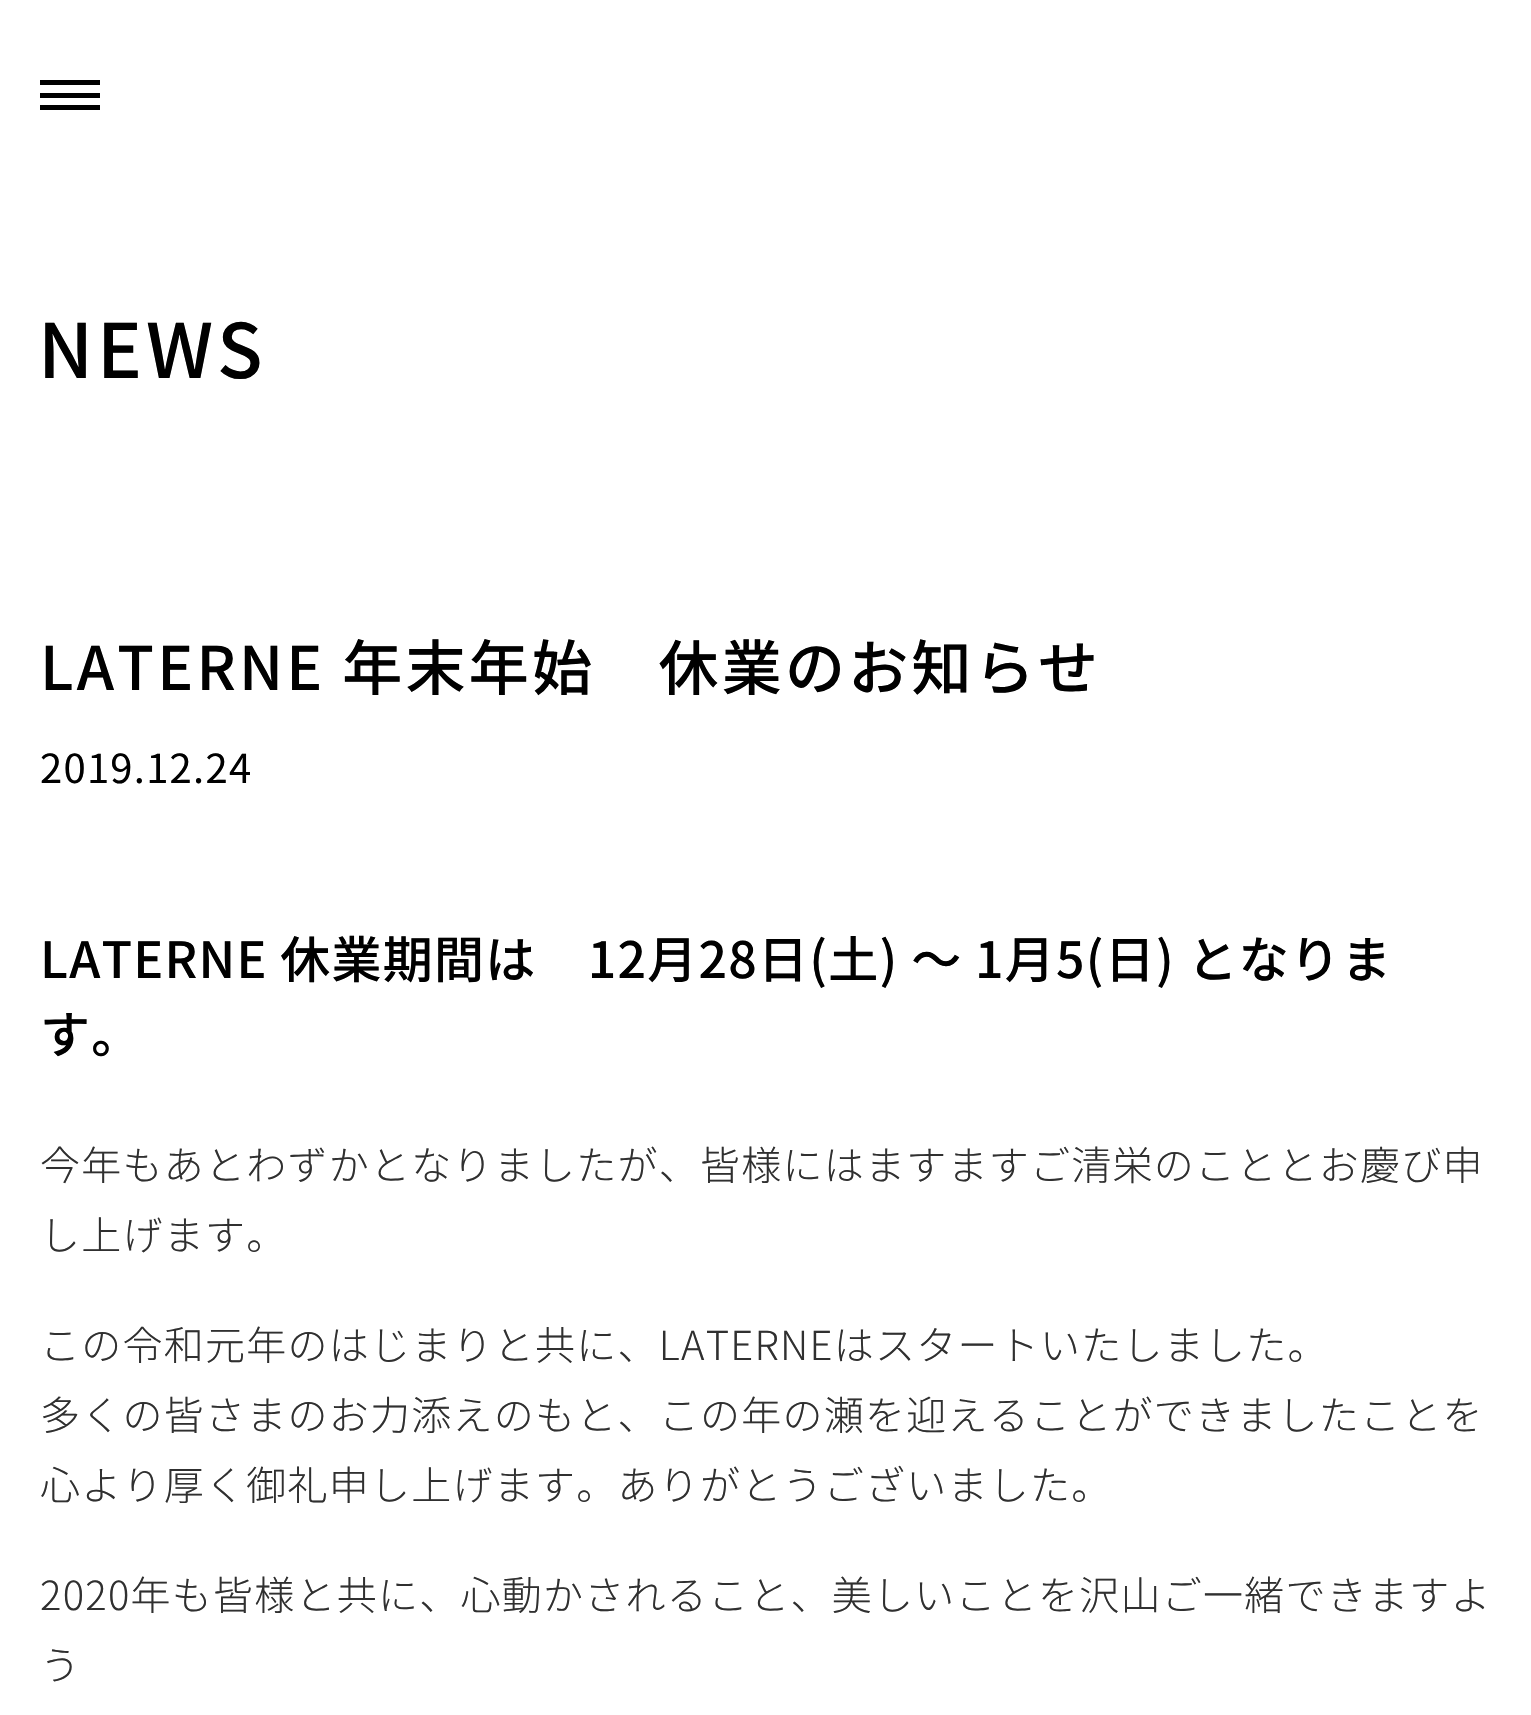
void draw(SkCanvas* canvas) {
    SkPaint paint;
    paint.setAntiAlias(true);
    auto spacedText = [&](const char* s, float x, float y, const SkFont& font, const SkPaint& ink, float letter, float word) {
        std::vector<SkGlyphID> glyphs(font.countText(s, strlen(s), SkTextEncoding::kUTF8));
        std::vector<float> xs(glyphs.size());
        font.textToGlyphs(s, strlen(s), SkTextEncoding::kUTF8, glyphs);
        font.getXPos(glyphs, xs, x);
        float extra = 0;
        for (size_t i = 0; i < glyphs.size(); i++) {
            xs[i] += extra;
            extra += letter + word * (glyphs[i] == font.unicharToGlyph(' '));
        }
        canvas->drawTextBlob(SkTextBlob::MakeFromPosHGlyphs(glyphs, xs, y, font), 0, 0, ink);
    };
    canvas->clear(0xFFFFFFFF);
    paint.setColor(0xFF000000);
    canvas->drawRect(SkRect::MakeXYWH(40, 80, 60, 5), paint);
    canvas->drawRect(SkRect::MakeXYWH(40, 93, 60, 5), paint);
    canvas->drawRect(SkRect::MakeXYWH(40, 105, 60, 5), paint);
    SkFont font1(fontMgr->matchFamilyStyle("Noto Sans JP", SkFontStyle(500, SkFontStyle::kNormal_Width, SkFontStyle::kUpright_Slant)), 75);
    font1.setSubpixel(true);
    spacedText("NEWS", 38, 378, font1, paint, 4, 0);
    SkFont font2(fontMgr->matchFamilyStyle("Noto Sans JP", SkFontStyle(500, SkFontStyle::kNormal_Width, SkFontStyle::kUpright_Slant)), 60);
    font2.setSubpixel(true);
    spacedText("LATERNE 年末年始　休業のお知らせ", 40, 690, font2, paint, 3.25f, 0);
    SkFont font3(fontMgr->matchFamilyStyle("Noto Sans JP", SkFontStyle::Normal()), 40);
    font3.setSubpixel(true);
    spacedText("2019.12.24", 40, 783, font3, paint, 1.25f, 0);
    SkFont font4(fontMgr->matchFamilyStyle("Noto Sans JP", SkFontStyle(500, SkFontStyle::kNormal_Width, SkFontStyle::kUpright_Slant)), 50);
    font4.setSubpixel(true);
    spacedText("LATERNE 休業期間は　12月28日(土) 〜 1月5(日) となりま", 40, 978, font4, paint, 1.25f, 0);
    spacedText("す。", 40, 1053, font4, paint, 1.25f, 0);
    SkFont font5(fontMgr->matchFamilyStyle("Noto Sans JP", SkFontStyle(300, SkFontStyle::kNormal_Width, SkFontStyle::kUpright_Slant)), 40);
    font5.setSubpixel(true);
    paint.setColor(0xFF303030);
    spacedText("今年もあとわずかとなりましたが、皆様にはますますご清栄のこととお慶び申", 40, 1180, font5, paint, 1.25f, 0);
    spacedText("し上げます。", 40, 1250, font5, paint, 1.25f, 0);
    spacedText("この令和元年のはじまりと共に、LATERNEはスタートいたしました。", 40, 1360, font5, paint, 1.25f, 0);
    spacedText("多くの皆さまのお力添えのもと、この年の瀬を迎えることができましたことを", 40, 1430, font5, paint, 1.25f, 0);
    spacedText("心より厚く御礼申し上げます。ありがとうございました。", 40, 1500, font5, paint, 1.25f, 0);
    spacedText("2020年も皆様と共に、心動かされること、美しいことを沢山ご一緒できますよ", 40, 1610, font5, paint, 1.25f, 0);
    spacedText("う", 40, 1680, font5, paint, 1.25f, 0);
}
